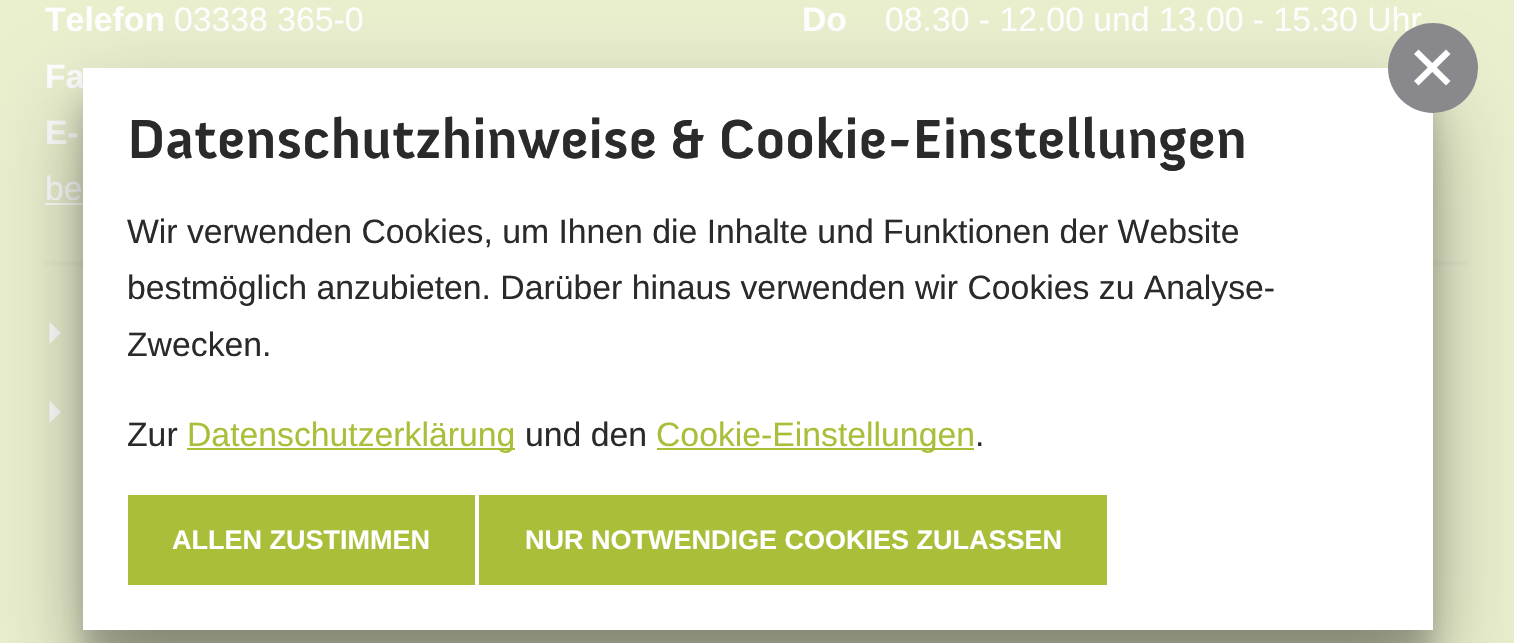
void draw(SkCanvas* canvas) {
    SkPaint paint;
    paint.setAntiAlias(true);
    canvas->clear(0xFFEAEFCE);
    SkFont font1(fontMgr->matchFamilyStyle("Liberation Sans", SkFontStyle::Bold()), 33.75f);
    font1.setSubpixel(true);
    paint.setColor(0xFFFFFFFF);
    canvas->drawString("Telefon", 45, 31, font1, paint);
    SkFont font2(fontMgr->matchFamilyStyle("Liberation Sans", SkFontStyle::Normal()), 33.75f);
    font2.setSubpixel(true);
    canvas->drawString("03338 365-0", 174, 31, font2, paint);
    canvas->drawString("Fa", 45, 88, font1, paint);
    canvas->drawString("E-", 45, 144, font1, paint);
    canvas->drawString("be", 45, 200, font2, paint);
    canvas->drawRect(SkRect::MakeXYWH(45, 203, 38, 2), paint);
    canvas->drawString("Do", 802, 31, font1, paint);
    canvas->drawString("08.30 - 12.00 und 13.00 - 15.30 Uhr", 885, 31, font2, paint);
    paint.setColor(0xFFE6EACC);
    canvas->drawRect(SkRect::MakeXYWH(45, 261, 1424, 5), paint);
    paint.setColor(0xFFFFFFFF);
    canvas->drawPath(SkPathBuilder().moveTo(49.5f, 344).lineTo(49.5f, 322).lineTo(61, 333).close().detach(), paint);
    canvas->drawPath(SkPathBuilder().moveTo(49.5f, 423).lineTo(49.5f, 400.5f).lineTo(61, 412).close().detach(), paint);
    paint.setColor(0x38000000);
    paint.setMaskFilter(SkMaskFilter::MakeBlur(kNormal_SkBlurStyle, 13.5f));
    canvas->drawRect(SkRect::MakeXYWH(83, 101, 1350, 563), paint);
    paint.setMaskFilter(nullptr);
    paint.setColor(0x4D000000);
    paint.setMaskFilter(SkMaskFilter::MakeBlur(kNormal_SkBlurStyle, 43));
    canvas->drawRect(SkRect::MakeXYWH(83, 110, 1350, 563), paint);
    paint.setMaskFilter(nullptr);
    paint.setColor(0xFFFFFFFF);
    canvas->drawRect(SkRect::MakeXYWH(83, 68, 1350, 562), paint);
    paint.setColor(0xFF89898D);
    canvas->drawCircle(1433, 68, 45, paint);
    paint.setColor(0xFFFFFFFF);
    canvas->drawPath(SkPathBuilder().moveTo(1418.5f, 49.5f).lineTo(1450.5f, 81).lineTo(1446, 85.5f).lineTo(1414, 54).close().detach(), paint);
    canvas->drawPath(SkPathBuilder().moveTo(1414, 81).lineTo(1446, 49.5f).lineTo(1450.5f, 54).lineTo(1418.5f, 85.5f).close().detach(), paint);
    SkFont font3(fontMgr->matchFamilyStyle("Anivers", SkFontStyle::Bold()), 56.25f);
    font3.setSubpixel(true);
    paint.setColor(0xFF2A2A2B);
    canvas->drawString("Datenschutzhinweise & Cookie-Einstellungen", 127, 158, font3, paint);
    canvas->drawString("Wir verwenden Cookies, um Ihnen die Inhalte und Funktionen der Website", 127, 243, font2, paint);
    canvas->drawString("bestmöglich anzubieten. Darüber hinaus verwenden wir Cookies zu Analyse-", 127, 299, font2, paint);
    canvas->drawString("Zwecken.", 127, 356, font2, paint);
    canvas->drawString("Zur", 127, 446, font2, paint);
    paint.setColor(0xFFAABE3A);
    canvas->drawRect(SkRect::MakeXYWH(187, 448, 328, 2), paint);
    canvas->drawString("Datenschutzerklärung", 187, 446, font2, paint);
    paint.setColor(0xFF2A2A2B);
    canvas->drawString("und den", 525, 446, font2, paint);
    paint.setColor(0xFFAABE3A);
    canvas->drawRect(SkRect::MakeXYWH(657, 448, 317, 2), paint);
    canvas->drawString("Cookie-Einstellungen", 656, 446, font2, paint);
    paint.setColor(0xFF2A2A2B);
    canvas->drawString(".", 975, 446, font2, paint);
    paint.setColor(0xFFAABE3A);
    canvas->drawRect(SkRect::MakeXYWH(128, 495, 347, 90), paint);
    SkFont font4(fontMgr->matchFamilyStyle("Liberation Sans", SkFontStyle::Bold()), 27);
    font4.setSubpixel(true);
    paint.setColor(0xFFFFFFFF);
    canvas->drawString("ALLEN ZUSTIMMEN", 172, 549, font4, paint);
    paint.setColor(0xFFAABE3A);
    canvas->drawRect(SkRect::MakeXYWH(479, 495, 628, 90), paint);
    paint.setColor(0xFFFFFFFF);
    canvas->drawString("NUR NOTWENDIGE COOKIES ZULASSEN", 525, 549, font4, paint);
}
